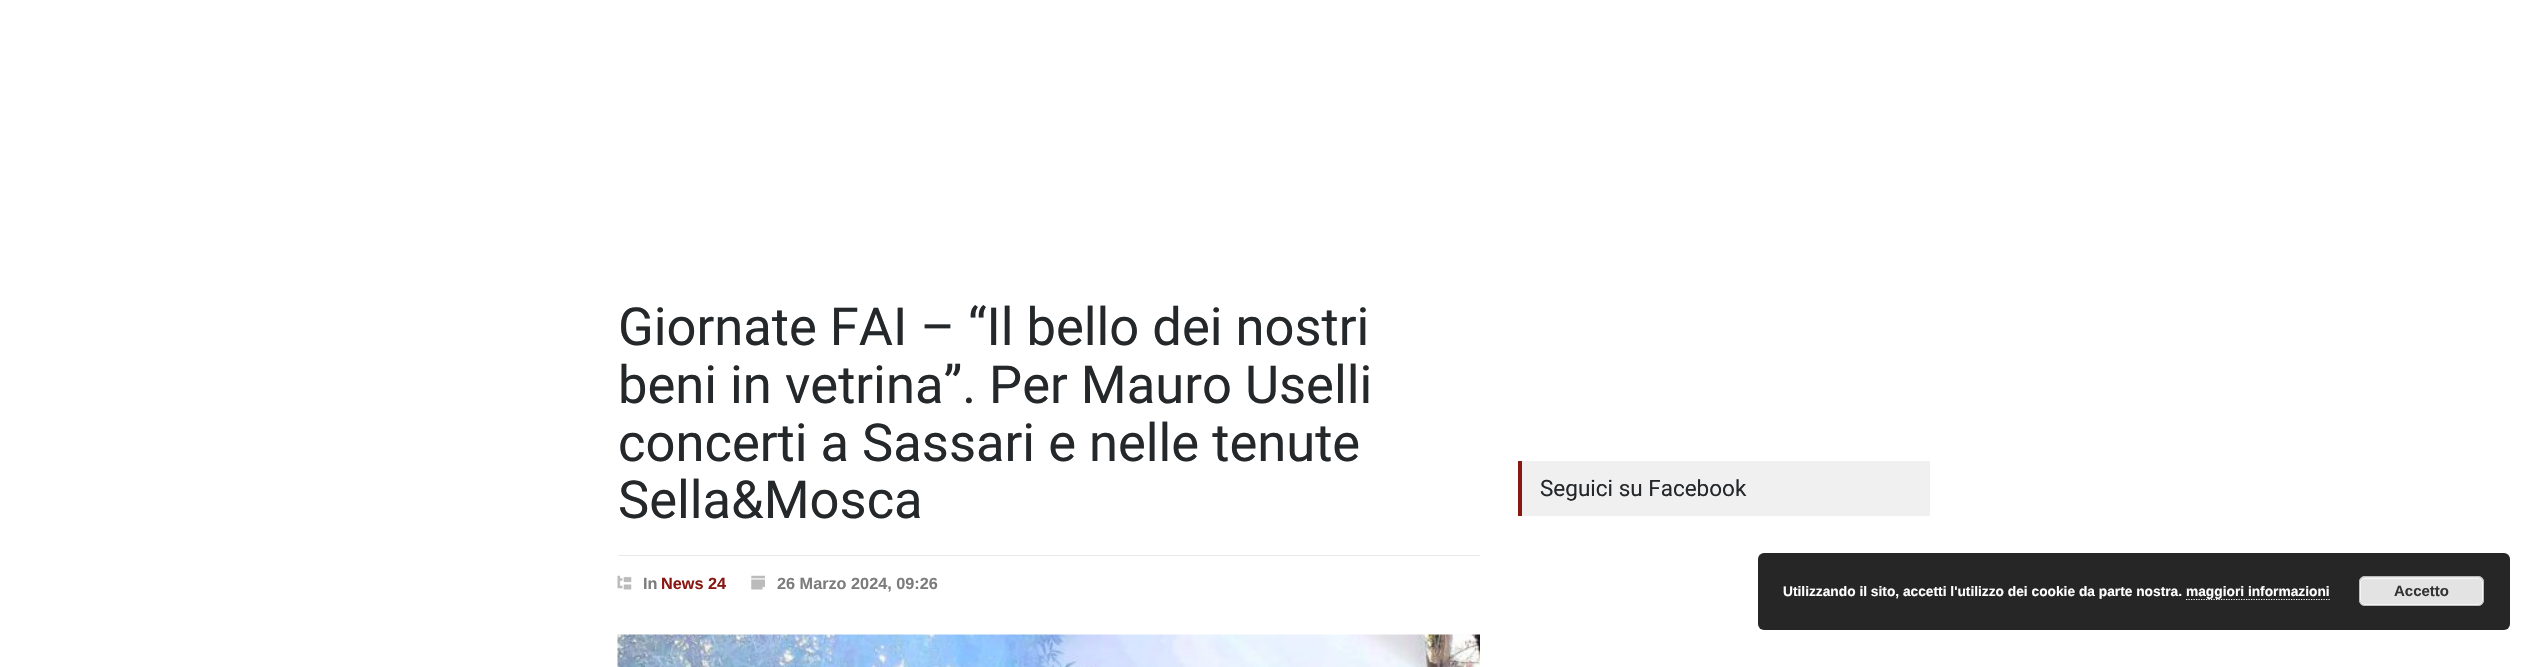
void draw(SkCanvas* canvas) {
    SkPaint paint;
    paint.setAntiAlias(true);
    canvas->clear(0xFFFFFFFF);
    SkFont font1(fontMgr->matchFamilyStyle("Roboto", SkFontStyle::Normal()), 52.5f);
    font1.setSubpixel(true);
    paint.setColor(0xFF25282A);
    canvas->drawString("Giornate FAI – “Il bello dei nostri", 618, 345, font1, paint);
    canvas->drawString("beni in vetrina”. Per Mauro Uselli", 618, 403, font1, paint);
    canvas->drawString("concerti a Sassari e nelle tenute", 618, 461, font1, paint);
    canvas->drawString("Sella&Mosca", 618, 518, font1, paint);
    paint.setColor(0xFFE9E9E9);
    canvas->drawRect(SkRect::MakeXYWH(618, 555, 862, 1), paint);
    canvas->drawImageRect(SkImages::DeferredFromEncodedData(SkData::MakeFromFileName("img1.png")), SkRect::MakeXYWH(617, 575, 15, 15), SkSamplingOptions());
    SkFont font2(fontMgr->matchFamilyStyle("Liberation Sans", SkFontStyle::Bold()), 16.25f);
    font2.setSubpixel(true);
    paint.setColor(0xFF7C7C7C);
    canvas->drawString("In", 643, 589, font2, paint);
    paint.setColor(0xFF891812);
    canvas->drawString("News 24", 661, 589, font2, paint);
    canvas->drawImageRect(SkImages::DeferredFromEncodedData(SkData::MakeFromFileName("img2.png")), SkRect::MakeXYWH(751, 575, 14, 15), SkSamplingOptions());
    paint.setColor(0xFF7C7C7C);
    canvas->drawString("26 Marzo 2024, 09:26", 777, 589, font2, paint);
    canvas->drawImageRect(SkImages::DeferredFromEncodedData(SkData::MakeFromFileName("img3.png")), SkRect::MakeXYWH(617, 634, 863, 33), SkSamplingOptions());
    paint.setColor(0xFFF0F0F0);
    canvas->drawRect(SkRect::MakeXYWH(1522, 461, 408, 55), paint);
    paint.setColor(0xFF891812);
    canvas->drawRect(SkRect::MakeXYWH(1518, 461, 4, 55), paint);
    SkFont font3(fontMgr->matchFamilyStyle("Roboto", SkFontStyle::Normal()), 22.5f);
    font3.setSubpixel(true);
    paint.setColor(0xFF25282A);
    canvas->drawString("Seguici su Facebook", 1540, 496, font3, paint);
    paint.setColor(0xFF262626);
    canvas->drawRoundRect(SkRect::MakeXYWH(1758, 553, 752, 77), 6, 6, paint);
    SkFont font4(fontMgr->matchFamilyStyle("Liberation Sans", SkFontStyle::Bold()), 13.75f);
    font4.setSubpixel(true);
    paint.setColor(0xFFFFFFFF);
    canvas->drawString("Utilizzando il sito, accetti l'utilizzo dei cookie da parte nostra.", 1783, 596, font4, paint);
    paint.setStyle(SkPaint::kStroke_Style);
    paint.setStrokeWidth(1.2f);
    paint.setPathEffect(SkDashPathEffect::Make({{1.25f, 1.25f}}, 0));
    canvas->drawPath(SkPathBuilder().moveTo(2186, 599.5f).lineTo(2330, 599.5f).detach(), paint);
    paint.setPathEffect(nullptr);
    paint.setStyle(SkPaint::kFill_Style);
    canvas->drawString("maggiori informazioni", 2186, 596, font4, paint);
    paint.setColor(0xFFE3E3E3);
    canvas->drawRoundRect(SkRect::MakeXYWH(2359, 576, 125, 30), 6, 6, paint);
    paint.setStyle(SkPaint::kStroke_Style);
    paint.setStrokeWidth(1);
    paint.setColor(0xFFF6F6F6);
    canvas->drawRoundRect(SkRect::MakeXYWH(2360.5f, 578.5f, 122, 26), 4.5f, 4.5f, paint);
    paint.setColor(0xFFBBBBBB);
    canvas->drawRoundRect(SkRect::MakeXYWH(2359.5f, 576.5f, 124, 29), 5.5f, 5.5f, paint);
    SkFont font5(fontMgr->matchFamilyStyle("Liberation Sans", SkFontStyle::Bold()), 15);
    font5.setSubpixel(true);
    paint.setStyle(SkPaint::kFill_Style);
    paint.setColor(0xFF333333);
    canvas->drawString("Accetto", 2394, 596, font5, paint);
}
